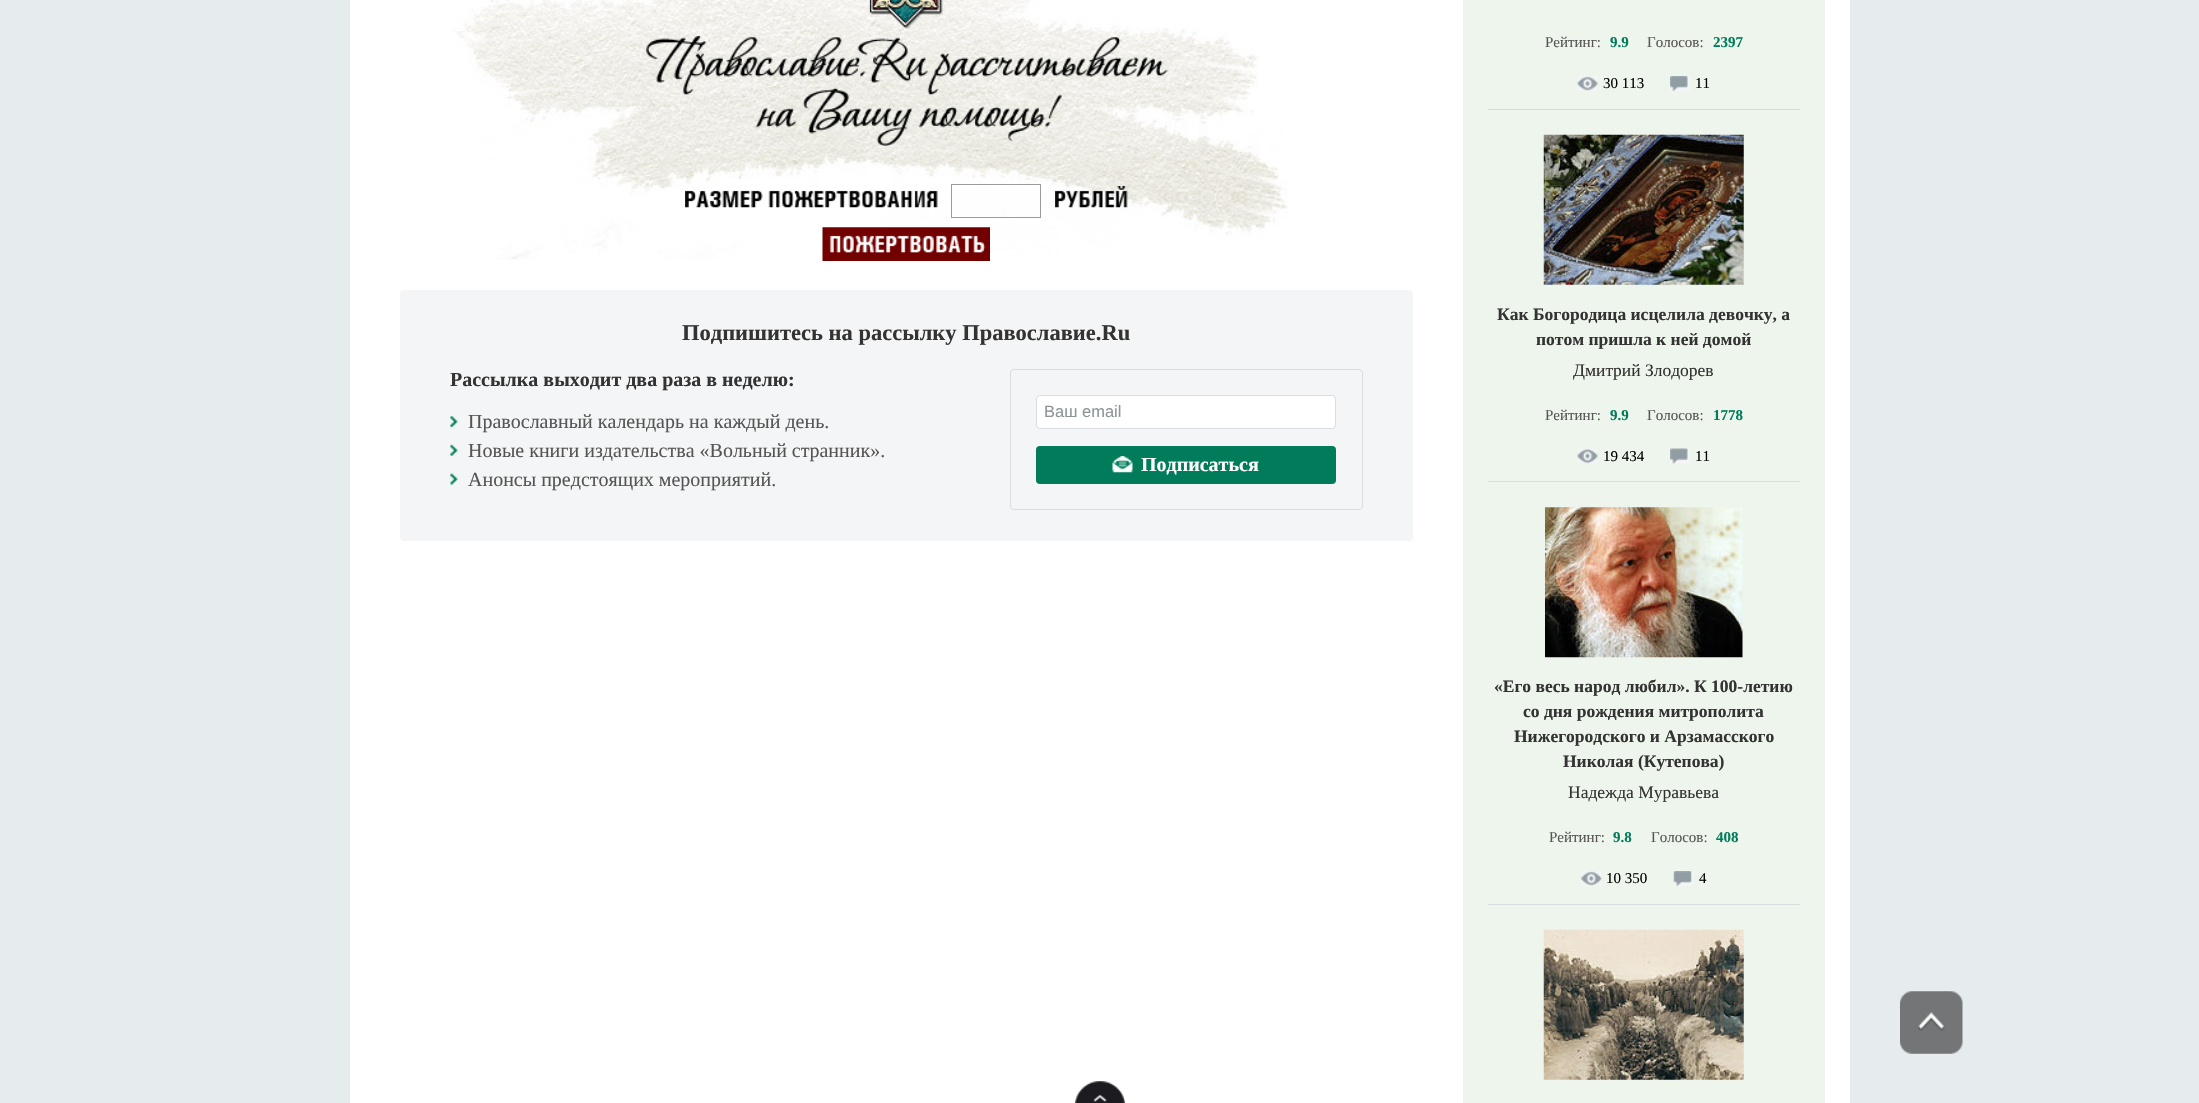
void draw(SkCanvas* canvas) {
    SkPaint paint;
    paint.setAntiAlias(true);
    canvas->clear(0xFFE6EBEE);
    paint.setColor(0xFFFFFFFF);
    canvas->drawRect(SkRect::MakeXYWH(350, 0, 1500, 1103), paint);
    canvas->drawImageRect(SkImages::DeferredFromEncodedData(SkData::MakeFromFileName("img1.png")), SkRect::MakeXYWH(453, 0, 836, 260), SkSamplingOptions());
    canvas->drawImageRect(SkImages::DeferredFromEncodedData(SkData::MakeFromFileName("img2.png")), SkRect::MakeXYWH(869, 0, 74, 29), SkSamplingOptions());
    canvas->drawImageRect(SkImages::DeferredFromEncodedData(SkData::MakeFromFileName("img3.png")), SkRect::MakeXYWH(646, 36, 522, 110), SkSamplingOptions());
    canvas->drawImageRect(SkImages::DeferredFromEncodedData(SkData::MakeFromFileName("img4.png")), SkRect::MakeXYWH(685, 190, 253, 18), SkSamplingOptions());
    canvas->drawRect(SkRect::MakeXYWH(1020, 185, 19, 2), paint);
    paint.setStyle(SkPaint::kStroke_Style);
    paint.setStrokeWidth(1);
    paint.setColor(0xFF9B9B9B);
    canvas->drawRect(SkRect::MakeXYWH(951.5f, 184.5f, 89, 33), paint);
    canvas->drawImageRect(SkImages::DeferredFromEncodedData(SkData::MakeFromFileName("img5.png")), SkRect::MakeXYWH(1055, 186, 73, 22), SkSamplingOptions());
    canvas->drawImageRect(SkImages::DeferredFromEncodedData(SkData::MakeFromFileName("img6.png")), SkRect::MakeXYWH(822, 227, 168, 34), SkSamplingOptions());
    paint.setStyle(SkPaint::kFill_Style);
    paint.setColor(0xFFF4F5F6);
    canvas->drawRoundRect(SkRect::MakeXYWH(400, 290, 1013, 251), 4, 4, paint);
    SkFont font1(fontMgr->matchFamilyStyle("Liberation Serif", SkFontStyle::Bold()), 22.5f);
    font1.setSubpixel(true);
    paint.setColor(0xFF333333);
    canvas->drawString("Подпишитесь на рассылку Православие.Ru", 682, 340, font1, paint);
    SkFont font2(fontMgr->matchFamilyStyle("Liberation Serif", SkFontStyle::Bold()), 20);
    font2.setSubpixel(true);
    canvas->drawString("Рассылка выходит два раза в неделю:", 450, 386, font2, paint);
    canvas->drawImageRect(SkImages::DeferredFromEncodedData(SkData::MakeFromFileName("img7.png")), SkRect::MakeXYWH(450, 416, 8, 12), SkSamplingOptions());
    SkFont font3(fontMgr->matchFamilyStyle("Liberation Serif", SkFontStyle::Normal()), 20);
    font3.setSubpixel(true);
    paint.setColor(0xFF555555);
    canvas->drawString("Православный календарь на каждый день.", 468, 428, font3, paint);
    canvas->drawImageRect(SkImages::DeferredFromEncodedData(SkData::MakeFromFileName("img8.png")), SkRect::MakeXYWH(450, 444, 8, 12), SkSamplingOptions());
    canvas->drawString("Новые книги издательства «Вольный странник».", 468, 457, font3, paint);
    canvas->drawImageRect(SkImages::DeferredFromEncodedData(SkData::MakeFromFileName("img9.png")), SkRect::MakeXYWH(450, 473, 8, 12), SkSamplingOptions());
    canvas->drawString("Анонсы предстоящих мероприятий.", 468, 486, font3, paint);
    paint.setStyle(SkPaint::kStroke_Style);
    paint.setColor(0xFFDADDE0);
    canvas->drawRoundRect(SkRect::MakeXYWH(1010.5f, 369.5f, 352, 140), 3.5f, 3.5f, paint);
    paint.setStyle(SkPaint::kFill_Style);
    paint.setColor(0xFFFFFFFF);
    canvas->drawRoundRect(SkRect::MakeXYWH(1036.5f, 395.5f, 299, 33), 3.5f, 3.5f, paint);
    paint.setStyle(SkPaint::kStroke_Style);
    paint.setColor(0xFFDADDE0);
    canvas->drawRoundRect(SkRect::MakeXYWH(1036.5f, 395.5f, 299, 33), 3.5f, 3.5f, paint);
    SkFont font4(fontMgr->matchFamilyStyle("Liberation Sans", SkFontStyle::Normal()), 16.5f);
    font4.setSubpixel(true);
    paint.setStyle(SkPaint::kFill_Style);
    paint.setColor(0xFF8D9598);
    canvas->drawString("Ваш email", 1044, 417, font4, paint);
    paint.setColor(0xFF007C5B);
    canvas->drawRoundRect(SkRect::MakeXYWH(1036, 446, 300, 38), 4, 4, paint);
    canvas->drawImageRect(SkImages::DeferredFromEncodedData(SkData::MakeFromFileName("img10.png")), SkRect::MakeXYWH(1112, 456, 21, 17), SkSamplingOptions());
    paint.setColor(0xFFFFFFFF);
    canvas->drawString("Подписаться", 1141, 471, font2, paint);
    paint.setColor(0xFFEEF5EC);
    canvas->drawRect(SkRect::MakeXYWH(1463, 0, 362, 1103), paint);
    SkFont font5(fontMgr->matchFamilyStyle("Liberation Serif", SkFontStyle::Normal()), 15);
    font5.setSubpixel(true);
    paint.setColor(0xFF555555);
    canvas->drawString("Рейтинг:", 1545, 47, font5, paint);
    SkFont font6(fontMgr->matchFamilyStyle("Liberation Serif", SkFontStyle::Bold()), 15);
    font6.setSubpixel(true);
    paint.setColor(0xFF007C5B);
    canvas->drawString("9.9", 1610, 47, font6, paint);
    paint.setColor(0xFF555555);
    canvas->drawString("Голосов:", 1647, 47, font5, paint);
    paint.setColor(0xFF007C5B);
    canvas->drawString("2397", 1713, 47, font6, paint);
    canvas->drawImageRect(SkImages::DeferredFromEncodedData(SkData::MakeFromFileName("img11.png")), SkRect::MakeXYWH(1577, 76, 21, 15), SkSamplingOptions());
    paint.setColor(0xFF000000);
    canvas->drawString("30 113", 1603, 88, font5, paint);
    canvas->drawImageRect(SkImages::DeferredFromEncodedData(SkData::MakeFromFileName("img12.png")), SkRect::MakeXYWH(1670, 76, 20, 15), SkSamplingOptions());
    canvas->drawString("11", 1695, 88, font5, paint);
    paint.setColor(0xFFDADDE0);
    canvas->drawRect(SkRect::MakeXYWH(1488, 109, 312, 1), paint);
    canvas->drawImageRect(SkImages::DeferredFromEncodedData(SkData::MakeFromFileName("img13.png")), SkRect::MakeXYWH(1543, 134, 201, 151), SkSamplingOptions());
    SkFont font7(fontMgr->matchFamilyStyle("Liberation Serif", SkFontStyle::Bold()), 17.5f);
    font7.setSubpixel(true);
    paint.setColor(0xFF333333);
    canvas->drawString("Как Богородица исцелила девочку, а", 1497, 320, font7, paint);
    canvas->drawString("потом пришла к ней домой", 1536, 345, font7, paint);
    SkFont font8(fontMgr->matchFamilyStyle("Liberation Serif", SkFontStyle::Normal()), 17.5f);
    font8.setSubpixel(true);
    canvas->drawString("Дмитрий Злодорев", 1573, 376, font8, paint);
    paint.setColor(0xFF555555);
    canvas->drawString("Рейтинг:", 1545, 420, font5, paint);
    paint.setColor(0xFF007C5B);
    canvas->drawString("9.9", 1610, 420, font6, paint);
    paint.setColor(0xFF555555);
    canvas->drawString("Голосов:", 1647, 420, font5, paint);
    paint.setColor(0xFF007C5B);
    canvas->drawString("1778", 1713, 420, font6, paint);
    canvas->drawImageRect(SkImages::DeferredFromEncodedData(SkData::MakeFromFileName("img14.png")), SkRect::MakeXYWH(1577, 448, 21, 16), SkSamplingOptions());
    paint.setColor(0xFF000000);
    canvas->drawString("19 434", 1603, 461, font5, paint);
    canvas->drawImageRect(SkImages::DeferredFromEncodedData(SkData::MakeFromFileName("img15.png")), SkRect::MakeXYWH(1670, 448, 20, 16), SkSamplingOptions());
    canvas->drawString("11", 1695, 461, font5, paint);
    paint.setColor(0xFFDADDE0);
    canvas->drawRect(SkRect::MakeXYWH(1488, 481, 312, 1), paint);
    canvas->drawImageRect(SkImages::DeferredFromEncodedData(SkData::MakeFromFileName("img16.png")), SkRect::MakeXYWH(1545, 507, 198, 151), SkSamplingOptions());
    paint.setColor(0xFF333333);
    canvas->drawString("«Его весь народ любил». К 100-летию", 1494, 692, font7, paint);
    canvas->drawString("со дня рождения митрополита", 1523, 717, font7, paint);
    canvas->drawString("Нижегородского и Арзамасского", 1514, 742, font7, paint);
    canvas->drawString("Николая (Кутепова)", 1563, 767, font7, paint);
    canvas->drawString("Надежда Муравьева", 1568, 798, font8, paint);
    paint.setColor(0xFF555555);
    canvas->drawString("Рейтинг:", 1549, 842, font5, paint);
    paint.setColor(0xFF007C5B);
    canvas->drawString("9.8", 1613, 842, font6, paint);
    paint.setColor(0xFF555555);
    canvas->drawString("Голосов:", 1651, 842, font5, paint);
    paint.setColor(0xFF007C5B);
    canvas->drawString("408", 1716, 842, font6, paint);
    canvas->drawImageRect(SkImages::DeferredFromEncodedData(SkData::MakeFromFileName("img17.png")), SkRect::MakeXYWH(1581, 871, 21, 15), SkSamplingOptions());
    paint.setColor(0xFF000000);
    canvas->drawString("10 350", 1606, 883, font5, paint);
    canvas->drawImageRect(SkImages::DeferredFromEncodedData(SkData::MakeFromFileName("img18.png")), SkRect::MakeXYWH(1673, 871, 21, 15), SkSamplingOptions());
    canvas->drawString("4", 1699, 883, font5, paint);
    paint.setColor(0xFFDADDE0);
    canvas->drawRect(SkRect::MakeXYWH(1488, 904, 312, 1), paint);
    canvas->drawImageRect(SkImages::DeferredFromEncodedData(SkData::MakeFromFileName("img19.png")), SkRect::MakeXYWH(1543, 929, 201, 151), SkSamplingOptions());
    canvas->drawImageRect(SkImages::DeferredFromEncodedData(SkData::MakeFromFileName("img20.png")), SkRect::MakeXYWH(1900, 991, 63, 63), SkSamplingOptions());
    canvas->drawImageRect(SkImages::DeferredFromEncodedData(SkData::MakeFromFileName("img21.png")), SkRect::MakeXYWH(1075, 1081, 50, 22), SkSamplingOptions());
}
